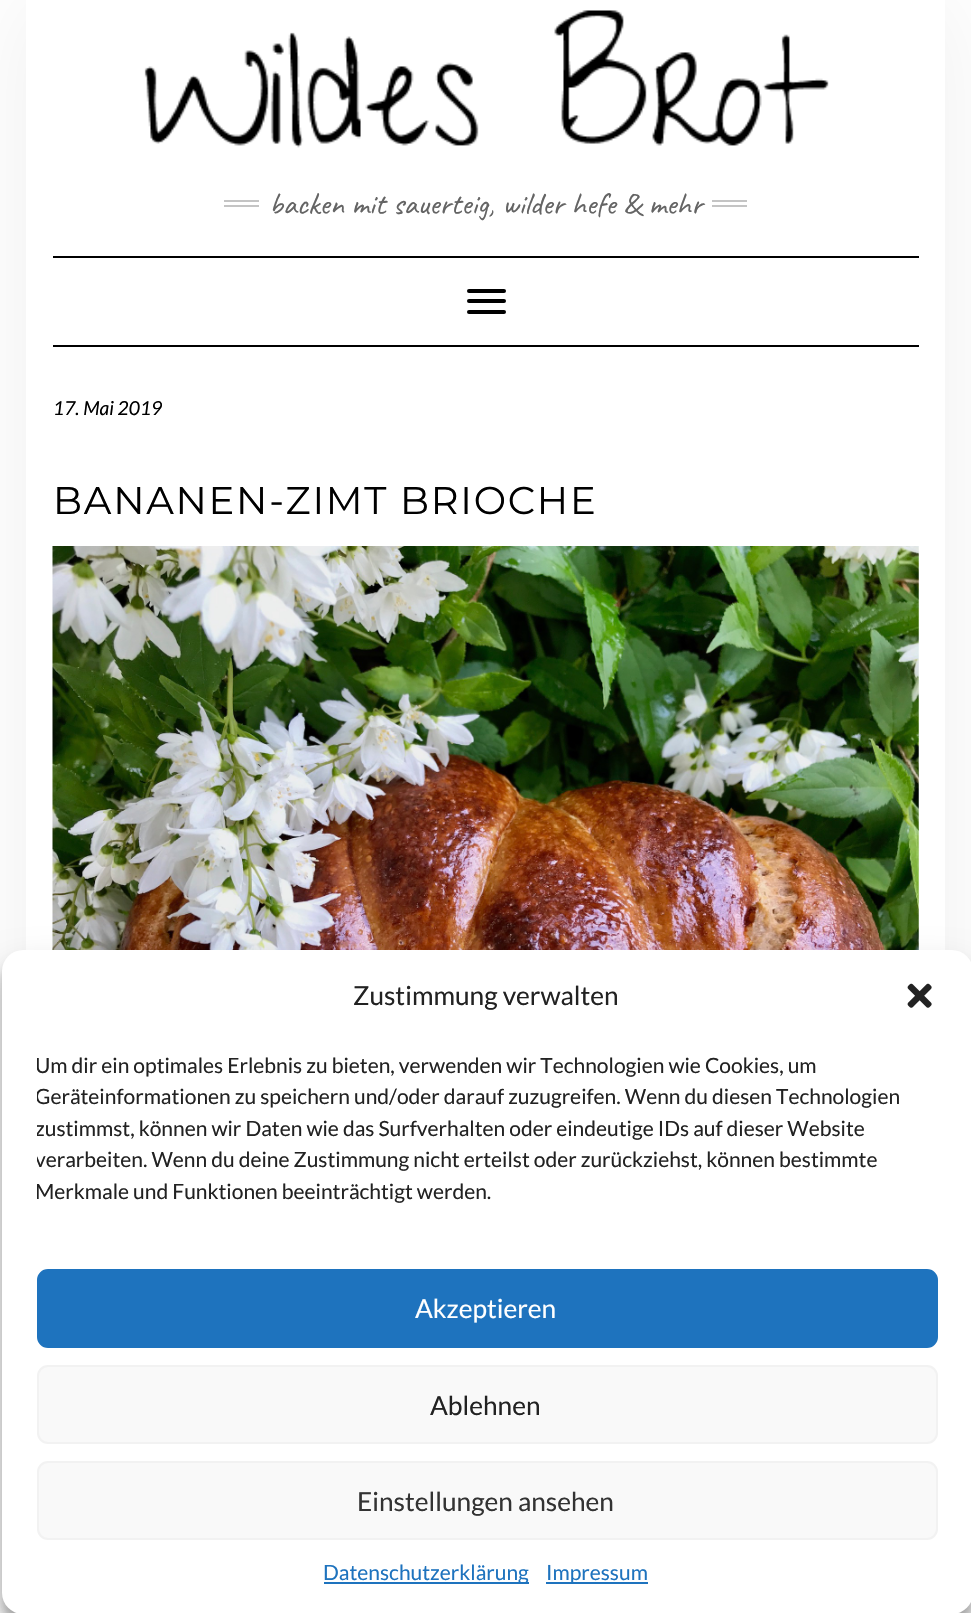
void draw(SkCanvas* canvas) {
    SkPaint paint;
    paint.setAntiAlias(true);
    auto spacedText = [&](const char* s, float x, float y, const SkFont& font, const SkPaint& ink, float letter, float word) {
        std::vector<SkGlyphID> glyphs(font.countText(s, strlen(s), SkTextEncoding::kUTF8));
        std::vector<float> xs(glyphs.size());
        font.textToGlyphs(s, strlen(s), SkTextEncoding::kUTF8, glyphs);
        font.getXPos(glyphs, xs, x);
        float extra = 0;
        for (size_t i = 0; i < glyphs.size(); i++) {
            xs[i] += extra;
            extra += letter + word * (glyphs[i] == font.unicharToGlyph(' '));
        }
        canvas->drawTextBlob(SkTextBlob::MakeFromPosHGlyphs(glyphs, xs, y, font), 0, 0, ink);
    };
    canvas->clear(0xFFFFFFFF);
    paint.setColor(0x0F000000);
    paint.setMaskFilter(SkMaskFilter::MakeBlur(kNormal_SkBlurStyle, 44));
    canvas->drawRect(SkRect::MakeXYWH(26, 0, 919, 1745), paint);
    paint.setMaskFilter(nullptr);
    paint.setColor(0xFFFFFFFF);
    canvas->drawRect(SkRect::MakeXYWH(26, 0, 919, 950), paint);
    canvas->drawImageRect(SkImages::DeferredFromEncodedData(SkData::MakeFromFileName("img1.png")), SkRect::MakeXYWH(144, 10, 685, 138), SkSamplingOptions());
    paint.setColor(0xFFC4C4C4);
    canvas->drawRect(SkRect::MakeXYWH(224, 200, 35, 2), paint);
    canvas->drawRect(SkRect::MakeXYWH(224, 205, 35, 2), paint);
    SkFont font1(fontMgr->matchFamilyStyle("Caveat", SkFontStyle::Normal()), 31.5f);
    font1.setSubpixel(true);
    paint.setColor(0xFF646464);
    canvas->drawString("backen mit sauerteig, wilder hefe & mehr", 269, 214, font1, paint);
    paint.setColor(0xFFC4C4C4);
    canvas->drawRect(SkRect::MakeXYWH(712, 200, 35, 2), paint);
    canvas->drawRect(SkRect::MakeXYWH(712, 205, 35, 2), paint);
    paint.setColor(0xFF000000);
    canvas->drawRect(SkRect::MakeXYWH(53, 256, 866, 2), paint);
    canvas->drawRect(SkRect::MakeXYWH(53, 345, 866, 2), paint);
    canvas->drawRoundRect(SkRect::MakeXYWH(467, 289, 39, 4), 2, 2, paint);
    canvas->drawRoundRect(SkRect::MakeXYWH(467, 299, 39, 4), 2, 2, paint);
    canvas->drawRoundRect(SkRect::MakeXYWH(467, 310, 39, 4), 2, 2, paint);
    SkFont font2(fontMgr->matchFamilyStyle("Lato", SkFontStyle::Italic()), 19.25f);
    font2.setSubpixel(true);
    canvas->drawString("17. Mai 2019", 53, 415, font2, paint);
    SkFont font3(fontMgr->matchFamilyStyle("Montserrat", SkFontStyle::Normal()), 38.5f);
    font3.setSubpixel(true);
    spacedText("BANANEN-ZIMT BRIOCHE", 53, 514, font3, paint, 1.75f, 0);
    canvas->drawImageRect(SkImages::DeferredFromEncodedData(SkData::MakeFromFileName("img2.png")), SkRect::MakeXYWH(52, 546, 867, 404), SkSamplingOptions());
    paint.setColor(0x3B000000);
    paint.setMaskFilter(SkMaskFilter::MakeBlur(kNormal_SkBlurStyle, 5));
    canvas->drawRoundRect(SkRect::MakeXYWH(2, 961, 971, 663), 21, 21, paint);
    paint.setMaskFilter(nullptr);
    paint.setColor(0x30000000);
    paint.setMaskFilter(SkMaskFilter::MakeBlur(kNormal_SkBlurStyle, 17.5f));
    canvas->drawRoundRect(SkRect::MakeXYWH(2, 968, 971, 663), 21, 21, paint);
    paint.setMaskFilter(nullptr);
    paint.setColor(0xFFFFFFFF);
    canvas->drawRoundRect(SkRect::MakeXYWH(2, 950, 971, 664), 21, 21, paint);
    SkFont font4(fontMgr->matchFamilyStyle("Lato", SkFontStyle::Normal()), 26.25f);
    font4.setSubpixel(true);
    paint.setColor(0xFF222222);
    canvas->drawString("Zustimmung verwalten", 353, 1005, font4, paint);
    canvas->drawImageRect(SkImages::DeferredFromEncodedData(SkData::MakeFromFileName("img3.png")), SkRect::MakeXYWH(907, 983, 25, 25), SkSamplingOptions());
    canvas->save();
    canvas->clipRect(SkRect::MakeXYWH(37, 1050, 901, 166));
    SkFont font5(fontMgr->matchFamilyStyle("Lato", SkFontStyle::Normal()), 21);
    font5.setSubpixel(true);
    canvas->drawString("Um dir ein optimales Erlebnis zu bieten, verwenden wir Technologien wie Cookies, um", 35, 1073, font5, paint);
    canvas->drawString("Geräteinformationen zu speichern und/oder darauf zuzugreifen. Wenn du diesen Technologien", 35, 1104, font5, paint);
    canvas->drawString("zustimmst, können wir Daten wie das Surfverhalten oder eindeutige IDs auf dieser Website", 35, 1136, font5, paint);
    canvas->drawString("verarbeiten. Wenn du deine Zustimmung nicht erteilst oder zurückziehst, können bestimmte", 35, 1167, font5, paint);
    canvas->drawString("Merkmale und Funktionen beeinträchtigt werden.", 35, 1199, font5, paint);
    canvas->restore();
    paint.setColor(0xFF1E73BE);
    canvas->drawRoundRect(SkRect::MakeXYWH(38, 1270, 899, 77), 10, 10, paint);
    paint.setStyle(SkPaint::kStroke_Style);
    paint.setStrokeWidth(2);
    canvas->drawRoundRect(SkRect::MakeXYWH(38, 1270, 899, 77), 10, 10, paint);
    paint.setStyle(SkPaint::kFill_Style);
    paint.setColor(0xFFFFFFFF);
    canvas->drawString("Akzeptieren", 415, 1318, font4, paint);
    paint.setColor(0xFFF9F9F9);
    canvas->drawRoundRect(SkRect::MakeXYWH(38, 1366, 899, 77), 10, 10, paint);
    paint.setStyle(SkPaint::kStroke_Style);
    paint.setColor(0xFFF2F2F2);
    canvas->drawRoundRect(SkRect::MakeXYWH(38, 1366, 899, 77), 10, 10, paint);
    paint.setStyle(SkPaint::kFill_Style);
    paint.setColor(0xFF222222);
    canvas->drawString("Ablehnen", 430, 1415, font4, paint);
    paint.setColor(0xFFF9F9F9);
    canvas->drawRoundRect(SkRect::MakeXYWH(38, 1462, 899, 77), 10, 10, paint);
    paint.setStyle(SkPaint::kStroke_Style);
    paint.setColor(0xFFF2F2F2);
    canvas->drawRoundRect(SkRect::MakeXYWH(38, 1462, 899, 77), 10, 10, paint);
    paint.setStyle(SkPaint::kFill_Style);
    paint.setColor(0xFF333333);
    canvas->drawString("Einstellungen ansehen", 357, 1511, font4, paint);
    paint.setColor(0xFF1E73BE);
    canvas->drawRect(SkRect::MakeXYWH(324, 1582, 205, 2), paint);
    canvas->drawString("Datenschutzerklärung", 323, 1580, font5, paint);
    canvas->drawRect(SkRect::MakeXYWH(546, 1582, 102, 2), paint);
    canvas->drawString("Impressum", 546, 1580, font5, paint);
}
